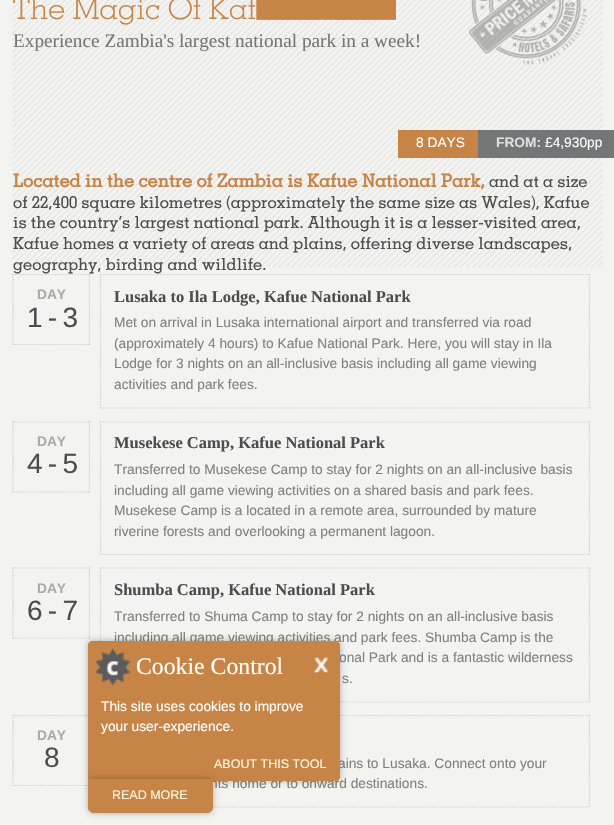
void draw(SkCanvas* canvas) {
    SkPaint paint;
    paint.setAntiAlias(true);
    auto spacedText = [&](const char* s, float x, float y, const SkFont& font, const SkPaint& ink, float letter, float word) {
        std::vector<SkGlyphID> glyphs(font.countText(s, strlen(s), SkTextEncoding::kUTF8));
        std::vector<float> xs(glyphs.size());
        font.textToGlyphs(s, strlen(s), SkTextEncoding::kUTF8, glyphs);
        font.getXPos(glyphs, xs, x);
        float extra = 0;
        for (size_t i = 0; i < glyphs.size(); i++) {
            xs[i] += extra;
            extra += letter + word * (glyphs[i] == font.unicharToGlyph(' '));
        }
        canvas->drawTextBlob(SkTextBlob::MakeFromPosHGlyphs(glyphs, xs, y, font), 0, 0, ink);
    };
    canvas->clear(0xFFF3F3F1);
    canvas->drawImageRect(SkImages::DeferredFromEncodedData(SkData::MakeFromFileName("img1.png")), SkRect::MakeXYWH(12, 0, 591, 268), SkSamplingOptions());
    canvas->drawImageRect(SkImages::DeferredFromEncodedData(SkData::MakeFromFileName("img2.png")), SkRect::MakeXYWH(469, 0, 118, 65), SkSamplingOptions());
    SkFont font1(fontMgr->matchFamilyStyle("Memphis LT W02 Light", SkFontStyle(300, SkFontStyle::kNormal_Width, SkFontStyle::kUpright_Slant)), 30.25f);
    font1.setSubpixel(true);
    paint.setColor(0xFFC68546);
    canvas->drawString("The Magic Of Kaf", 13, 19, font1, paint);
    SkFont font2(fontMgr->matchFamilyStyle("Liberation Serif", SkFontStyle::Normal()), 19.25f);
    font2.setSubpixel(true);
    paint.setColor(0xFF777777);
    canvas->drawString("Experience Zambia's largest national park in a week!", 13, 47, font2, paint);
    paint.setColor(0xFFC68546);
    canvas->drawRect(SkRect::MakeXYWH(398, 130, 80, 28), paint);
    SkFont font3(fontMgr->matchFamilyStyle("Liberation Sans", SkFontStyle::Normal()), 13.75f);
    font3.setSubpixel(true);
    paint.setColor(0xFFFFFFFF);
    canvas->drawString("8 DAYS", 416, 147, font3, paint);
    paint.setColor(0xFF747576);
    canvas->drawRect(SkRect::MakeXYWH(478, 130, 136, 28), paint);
    SkFont font4(fontMgr->matchFamilyStyle("Liberation Sans", SkFontStyle::Bold()), 13.75f);
    font4.setSubpixel(true);
    paint.setColor(0xFFDEDEDE);
    canvas->drawString("FROM:", 496, 147, font4, paint);
    paint.setColor(0xFFFFFFFF);
    canvas->drawString("£4,930pp", 545, 147, font3, paint);
    SkFont font5(fontMgr->matchFamilyStyle("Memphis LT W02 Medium", SkFontStyle::Bold()), 18.15f);
    font5.setSubpixel(true);
    paint.setColor(0xFFC68546);
    canvas->drawString("Located in the centre of Zambia is Kafue National Park,", 13, 187, font5, paint);
    SkFont font6(fontMgr->matchFamilyStyle("Memphis LT W02 Medium", SkFontStyle(500, SkFontStyle::kNormal_Width, SkFontStyle::kUpright_Slant)), 16.5f);
    font6.setSubpixel(true);
    paint.setColor(0xFF4D4D4F);
    canvas->drawString("and at a size", 489, 187, font6, paint);
    canvas->drawString("of 22,400 square kilometres (approximately the same size as Wales), Kafue", 13, 208, font6, paint);
    canvas->drawString("is the country’s largest national park. Although it is a lesser-visited area,", 13, 228, font6, paint);
    canvas->drawString("Kafue homes a variety of areas and plains, offering diverse landscapes,", 13, 249, font6, paint);
    paint.setStyle(SkPaint::kStroke_Style);
    paint.setStrokeWidth(1.2f);
    paint.setColor(0xFFCCCCCC);
    paint.setPathEffect(SkDashPathEffect::Make({{1.25f, 1.25f}}, 0));
    canvas->drawPath(SkPathBuilder().moveTo(12.5f, 274.5f).lineTo(90, 274.5f).detach(), paint);
    paint.setPathEffect(nullptr);
    paint.setPathEffect(SkDashPathEffect::Make({{1.25f, 1.25f}}, 0));
    canvas->drawPath(SkPathBuilder().moveTo(100, 274.5f).lineTo(590, 274.5f).detach(), paint);
    paint.setPathEffect(nullptr);
    paint.setStyle(SkPaint::kFill_Style);
    paint.setColor(0xFF4D4D4F);
    canvas->drawString("geography, birding and wildlife.", 13, 270, font6, paint);
    paint.setStyle(SkPaint::kStroke_Style);
    paint.setColor(0xFFCCCCCC);
    paint.setPathEffect(SkDashPathEffect::Make({{1.25f, 1.25f}}, 0));
    canvas->drawPath(SkPathBuilder().moveTo(89.5f, 274).lineTo(89.5f, 345).detach(), paint);
    paint.setPathEffect(nullptr);
    paint.setPathEffect(SkDashPathEffect::Make({{1.25f, 1.25f}}, 0));
    canvas->drawPath(SkPathBuilder().moveTo(12.5f, 344.5f).lineTo(90, 344.5f).detach(), paint);
    paint.setPathEffect(nullptr);
    paint.setPathEffect(SkDashPathEffect::Make({{1.25f, 1.25f}}, 0));
    canvas->drawPath(SkPathBuilder().moveTo(13, 274).lineTo(13, 345).detach(), paint);
    paint.setPathEffect(nullptr);
    paint.setStyle(SkPaint::kFill_Style);
    paint.setColor(0xFFAAAAAA);
    canvas->drawString("DAY", 37, 299, font4, paint);
    SkFont font7(fontMgr->matchFamilyStyle("Liberation Sans", SkFontStyle::Normal()), 28);
    font7.setSubpixel(true);
    paint.setColor(0xFF4D4D4F);
    spacedText("1 - 3", 27, 327, font7, paint, -1.25f, 0);
    paint.setStyle(SkPaint::kStroke_Style);
    paint.setColor(0xFFCCCCCC);
    paint.setPathEffect(SkDashPathEffect::Make({{1.25f, 1.25f}}, 0));
    canvas->drawPath(SkPathBuilder().moveTo(589.5f, 274).lineTo(589.5f, 409).detach(), paint);
    paint.setPathEffect(nullptr);
    paint.setPathEffect(SkDashPathEffect::Make({{1.25f, 1.25f}}, 0));
    canvas->drawPath(SkPathBuilder().moveTo(100, 408).lineTo(590, 408).detach(), paint);
    paint.setPathEffect(nullptr);
    paint.setPathEffect(SkDashPathEffect::Make({{1.25f, 1.25f}}, 0));
    canvas->drawPath(SkPathBuilder().moveTo(100.5f, 274).lineTo(100.5f, 409).detach(), paint);
    paint.setPathEffect(nullptr);
    SkFont font8(fontMgr->matchFamilyStyle("Liberation Serif", SkFontStyle::Bold()), 16.5f);
    font8.setSubpixel(true);
    paint.setStyle(SkPaint::kFill_Style);
    paint.setColor(0xFF4D4D4F);
    canvas->drawString("Lusaka to Ila Lodge, Kafue National Park", 114, 302, font8, paint);
    paint.setColor(0xFF808080);
    canvas->drawString("Met on arrival in Lusaka international airport and transferred via road", 114, 327, font3, paint);
    canvas->drawString("(approximately 4 hours) to Kafue National Park. Here, you will stay in Ila", 114, 348, font3, paint);
    canvas->drawString("Lodge for 3 nights on an all-inclusive basis including all game viewing", 114, 368, font3, paint);
    canvas->drawString("activities and park fees.", 114, 389, font3, paint);
    paint.setStyle(SkPaint::kStroke_Style);
    paint.setColor(0xFFCCCCCC);
    paint.setPathEffect(SkDashPathEffect::Make({{1.25f, 1.25f}}, 0));
    canvas->drawPath(SkPathBuilder().moveTo(12.5f, 422).lineTo(90, 422).detach(), paint);
    paint.setPathEffect(nullptr);
    paint.setPathEffect(SkDashPathEffect::Make({{1.25f, 1.25f}}, 0));
    canvas->drawPath(SkPathBuilder().moveTo(89.5f, 421).lineTo(89.5f, 492.5f).detach(), paint);
    paint.setPathEffect(nullptr);
    paint.setPathEffect(SkDashPathEffect::Make({{1.25f, 1.25f}}, 0));
    canvas->drawPath(SkPathBuilder().moveTo(12.5f, 492).lineTo(90, 492).detach(), paint);
    paint.setPathEffect(nullptr);
    paint.setPathEffect(SkDashPathEffect::Make({{1.25f, 1.25f}}, 0));
    canvas->drawPath(SkPathBuilder().moveTo(13, 421).lineTo(13, 492.5f).detach(), paint);
    paint.setPathEffect(nullptr);
    paint.setStyle(SkPaint::kFill_Style);
    paint.setColor(0xFFAAAAAA);
    canvas->drawString("DAY", 37, 446, font4, paint);
    paint.setColor(0xFF4D4D4F);
    spacedText("4 - 5", 27, 473, font7, paint, -1.25f, 0);
    paint.setStyle(SkPaint::kStroke_Style);
    paint.setColor(0xFFCCCCCC);
    paint.setPathEffect(SkDashPathEffect::Make({{1.25f, 1.25f}}, 0));
    canvas->drawPath(SkPathBuilder().moveTo(100, 422).lineTo(590, 422).detach(), paint);
    paint.setPathEffect(nullptr);
    paint.setPathEffect(SkDashPathEffect::Make({{1.25f, 1.25f}}, 0));
    canvas->drawPath(SkPathBuilder().moveTo(589.5f, 421).lineTo(589.5f, 555).detach(), paint);
    paint.setPathEffect(nullptr);
    paint.setPathEffect(SkDashPathEffect::Make({{1.25f, 1.25f}}, 0));
    canvas->drawPath(SkPathBuilder().moveTo(100, 554.5f).lineTo(590, 554.5f).detach(), paint);
    paint.setPathEffect(nullptr);
    paint.setPathEffect(SkDashPathEffect::Make({{1.25f, 1.25f}}, 0));
    canvas->drawPath(SkPathBuilder().moveTo(100.5f, 421).lineTo(100.5f, 555).detach(), paint);
    paint.setPathEffect(nullptr);
    paint.setStyle(SkPaint::kFill_Style);
    paint.setColor(0xFF4D4D4F);
    canvas->drawString("Musekese Camp, Kafue National Park", 114, 448, font8, paint);
    paint.setColor(0xFF808080);
    canvas->drawString("Transferred to Musekese Camp to stay for 2 nights on an all-inclusive basis", 114, 474, font3, paint);
    canvas->drawString("including all game viewing activities on a shared basis and park fees.", 114, 495, font3, paint);
    canvas->drawString("Musekese Camp is a located in a remote area, surrounded by mature", 114, 515, font3, paint);
    canvas->drawString("riverine forests and overlooking a permanent lagoon.", 114, 536, font3, paint);
    paint.setStyle(SkPaint::kStroke_Style);
    paint.setColor(0xFFCCCCCC);
    paint.setPathEffect(SkDashPathEffect::Make({{1.25f, 1.25f}}, 0));
    canvas->drawPath(SkPathBuilder().moveTo(12.5f, 568).lineTo(90, 568).detach(), paint);
    paint.setPathEffect(nullptr);
    paint.setPathEffect(SkDashPathEffect::Make({{1.25f, 1.25f}}, 0));
    canvas->drawPath(SkPathBuilder().moveTo(89.5f, 567.5f).lineTo(89.5f, 639).detach(), paint);
    paint.setPathEffect(nullptr);
    paint.setPathEffect(SkDashPathEffect::Make({{1.25f, 1.25f}}, 0));
    canvas->drawPath(SkPathBuilder().moveTo(12.5f, 638).lineTo(90, 638).detach(), paint);
    paint.setPathEffect(nullptr);
    paint.setPathEffect(SkDashPathEffect::Make({{1.25f, 1.25f}}, 0));
    canvas->drawPath(SkPathBuilder().moveTo(13, 567.5f).lineTo(13, 639).detach(), paint);
    paint.setPathEffect(nullptr);
    paint.setStyle(SkPaint::kFill_Style);
    paint.setColor(0xFFAAAAAA);
    canvas->drawString("DAY", 37, 593, font4, paint);
    paint.setColor(0xFF4D4D4F);
    spacedText("6 - 7", 27, 620, font7, paint, -1.25f, 0);
    paint.setStyle(SkPaint::kStroke_Style);
    paint.setColor(0xFFCCCCCC);
    paint.setPathEffect(SkDashPathEffect::Make({{1.25f, 1.25f}}, 0));
    canvas->drawPath(SkPathBuilder().moveTo(100, 568).lineTo(590, 568).detach(), paint);
    paint.setPathEffect(nullptr);
    paint.setPathEffect(SkDashPathEffect::Make({{1.25f, 1.25f}}, 0));
    canvas->drawPath(SkPathBuilder().moveTo(589.5f, 567.5f).lineTo(589.5f, 702.5f).detach(), paint);
    paint.setPathEffect(nullptr);
    paint.setPathEffect(SkDashPathEffect::Make({{1.25f, 1.25f}}, 0));
    canvas->drawPath(SkPathBuilder().moveTo(100, 702).lineTo(590, 702).detach(), paint);
    paint.setPathEffect(nullptr);
    paint.setPathEffect(SkDashPathEffect::Make({{1.25f, 1.25f}}, 0));
    canvas->drawPath(SkPathBuilder().moveTo(100.5f, 567.5f).lineTo(100.5f, 702.5f).detach(), paint);
    paint.setPathEffect(nullptr);
    paint.setStyle(SkPaint::kFill_Style);
    paint.setColor(0xFF4D4D4F);
    canvas->drawString("Shumba Camp, Kafue National Park", 114, 595, font8, paint);
    paint.setColor(0xFF808080);
    canvas->drawString("Transferred to Shuma Camp to stay for 2 nights on an all-inclusive basis", 114, 621, font3, paint);
    canvas->drawString("including all game viewing activities and park fees. Shumba Camp is the", 114, 642, font3, paint);
    canvas->drawString("onal Park and is a fantastic wilderness", 339, 662, font3, paint);
    canvas->drawString("s.", 342, 683, font3, paint);
    paint.setStyle(SkPaint::kStroke_Style);
    paint.setColor(0xFFCCCCCC);
    paint.setPathEffect(SkDashPathEffect::Make({{1.25f, 1.25f}}, 0));
    canvas->drawPath(SkPathBuilder().moveTo(12.5f, 715.5f).lineTo(90, 715.5f).detach(), paint);
    paint.setPathEffect(nullptr);
    paint.setPathEffect(SkDashPathEffect::Make({{1.25f, 1.25f}}, 0));
    canvas->drawPath(SkPathBuilder().moveTo(12.5f, 785.5f).lineTo(90, 785.5f).detach(), paint);
    paint.setPathEffect(nullptr);
    paint.setPathEffect(SkDashPathEffect::Make({{1.25f, 1.25f}}, 0));
    canvas->drawPath(SkPathBuilder().moveTo(13, 715).lineTo(13, 786).detach(), paint);
    paint.setPathEffect(nullptr);
    paint.setStyle(SkPaint::kFill_Style);
    paint.setColor(0xFFAAAAAA);
    canvas->drawString("DAY", 37, 740, font4, paint);
    paint.setColor(0xFF4D4D4F);
    spacedText("8", 44, 767, font7, paint, -1.25f, 0);
    paint.setStyle(SkPaint::kStroke_Style);
    paint.setColor(0xFFCCCCCC);
    paint.setPathEffect(SkDashPathEffect::Make({{1.25f, 1.25f}}, 0));
    canvas->drawPath(SkPathBuilder().moveTo(100, 715.5f).lineTo(590, 715.5f).detach(), paint);
    paint.setPathEffect(nullptr);
    paint.setPathEffect(SkDashPathEffect::Make({{1.25f, 1.25f}}, 0));
    canvas->drawPath(SkPathBuilder().moveTo(589.5f, 715).lineTo(589.5f, 807.5f).detach(), paint);
    paint.setPathEffect(nullptr);
    paint.setPathEffect(SkDashPathEffect::Make({{1.25f, 1.25f}}, 0));
    canvas->drawPath(SkPathBuilder().moveTo(100, 807).lineTo(590, 807).detach(), paint);
    paint.setPathEffect(nullptr);
    paint.setStyle(SkPaint::kFill_Style);
    paint.setColor(0xFF808080);
    canvas->drawString("ains to Lusaka. Connect onto your", 338, 768, font3, paint);
    canvas->drawString("hts home or to onward destinations.", 210, 788, font3, paint);
    canvas->drawImageRect(SkImages::DeferredFromEncodedData(SkData::MakeFromFileName("img3.png")), SkRect::MakeXYWH(255, 0, 141, 20), SkSamplingOptions());
    paint.setColor(0x4D000000);
    paint.setMaskFilter(SkMaskFilter::MakeBlur(kNormal_SkBlurStyle, 3));
    canvas->drawRoundRect(SkRect::MakeXYWH(88, 641, 252, 140), 4, 4, paint);
    paint.setMaskFilter(nullptr);
    paint.setColor(0xFFC68546);
    canvas->drawPath(SkPathBuilder().moveTo(92, 641.5f).lineTo(336, 641.5f).cubicTo(338, 641.5f, 339.5f, 643, 339.5f, 645).lineTo(339.5f, 777).cubicTo(339.5f, 779, 338, 780.5f, 336, 780.5f).lineTo(88.5f, 780.5f).lineTo(88.5f, 645).cubicTo(88.5f, 643, 90, 641.5f, 92, 641.5f).close().detach(), paint);
    paint.setStyle(SkPaint::kStroke_Style);
    paint.setStrokeWidth(1);
    canvas->drawPath(SkPathBuilder().moveTo(92, 641.5f).lineTo(336, 641.5f).cubicTo(338, 641.5f, 339.5f, 643, 339.5f, 645).lineTo(339.5f, 777).cubicTo(339.5f, 779, 338, 780.5f, 336, 780.5f).lineTo(88.5f, 780.5f).lineTo(88.5f, 645).cubicTo(88.5f, 643, 90, 641.5f, 92, 641.5f).close().detach(), paint);
    canvas->drawImageRect(SkImages::DeferredFromEncodedData(SkData::MakeFromFileName("img4.png")), SkRect::MakeXYWH(95, 648, 36, 38), SkSamplingOptions());
    SkFont font9(fontMgr->matchFamilyStyle("Liberation Serif", SkFontStyle::Normal()), 23.75f);
    font9.setSubpixel(true);
    paint.setStyle(SkPaint::kFill_Style);
    paint.setColor(0xFFFFFFFF);
    canvas->drawString("Cookie Control", 136, 674, font9, paint);
    canvas->drawImageRect(SkImages::DeferredFromEncodedData(SkData::MakeFromFileName("img5.png")), SkRect::MakeXYWH(313, 657, 16, 16), SkSamplingOptions());
    canvas->drawString("This site uses cookies to improve", 101, 711, font3, paint);
    canvas->drawString("your user-experience.", 101, 731, font3, paint);
    SkFont font10(fontMgr->matchFamilyStyle("Liberation Sans", SkFontStyle::Normal()), 12.5f);
    font10.setSubpixel(true);
    paint.setColor(0xFFF9F9E0);
    canvas->drawString("ABOUT THIS TOOL", 214, 768, font10, paint);
    paint.setColor(0x4D000000);
    paint.setMaskFilter(SkMaskFilter::MakeBlur(kNormal_SkBlurStyle, 3));
    canvas->drawRoundRect(SkRect::MakeXYWH(88, 779, 125, 34), 6, 6, paint);
    paint.setMaskFilter(nullptr);
    paint.setColor(0xFFC68546);
    canvas->drawPath(SkPathBuilder().moveTo(88, 779).lineTo(213, 779).lineTo(213, 807).cubicTo(213, 810.5f, 210.5f, 813, 207, 813).lineTo(94, 813).cubicTo(90.5f, 813, 88, 810.5f, 88, 807).close().detach(), paint);
    canvas->drawPath(SkPathBuilder(SkPathFillType::kEvenOdd).moveTo(88, 779).lineTo(212, 779).lineTo(212, 806).cubicTo(212, 810, 210, 812, 206, 812).lineTo(94, 812).cubicTo(90, 812, 88, 810, 88, 806).close().moveTo(89, 779).lineTo(211, 779).lineTo(211, 806).cubicTo(211, 809, 209, 811, 206, 811).lineTo(94, 811).cubicTo(91, 811, 89, 809, 89, 806).close().detach(), paint);
    paint.setColor(0xFFF9F9E0);
    canvas->drawString("READ MORE", 112, 799, font10, paint);
}
